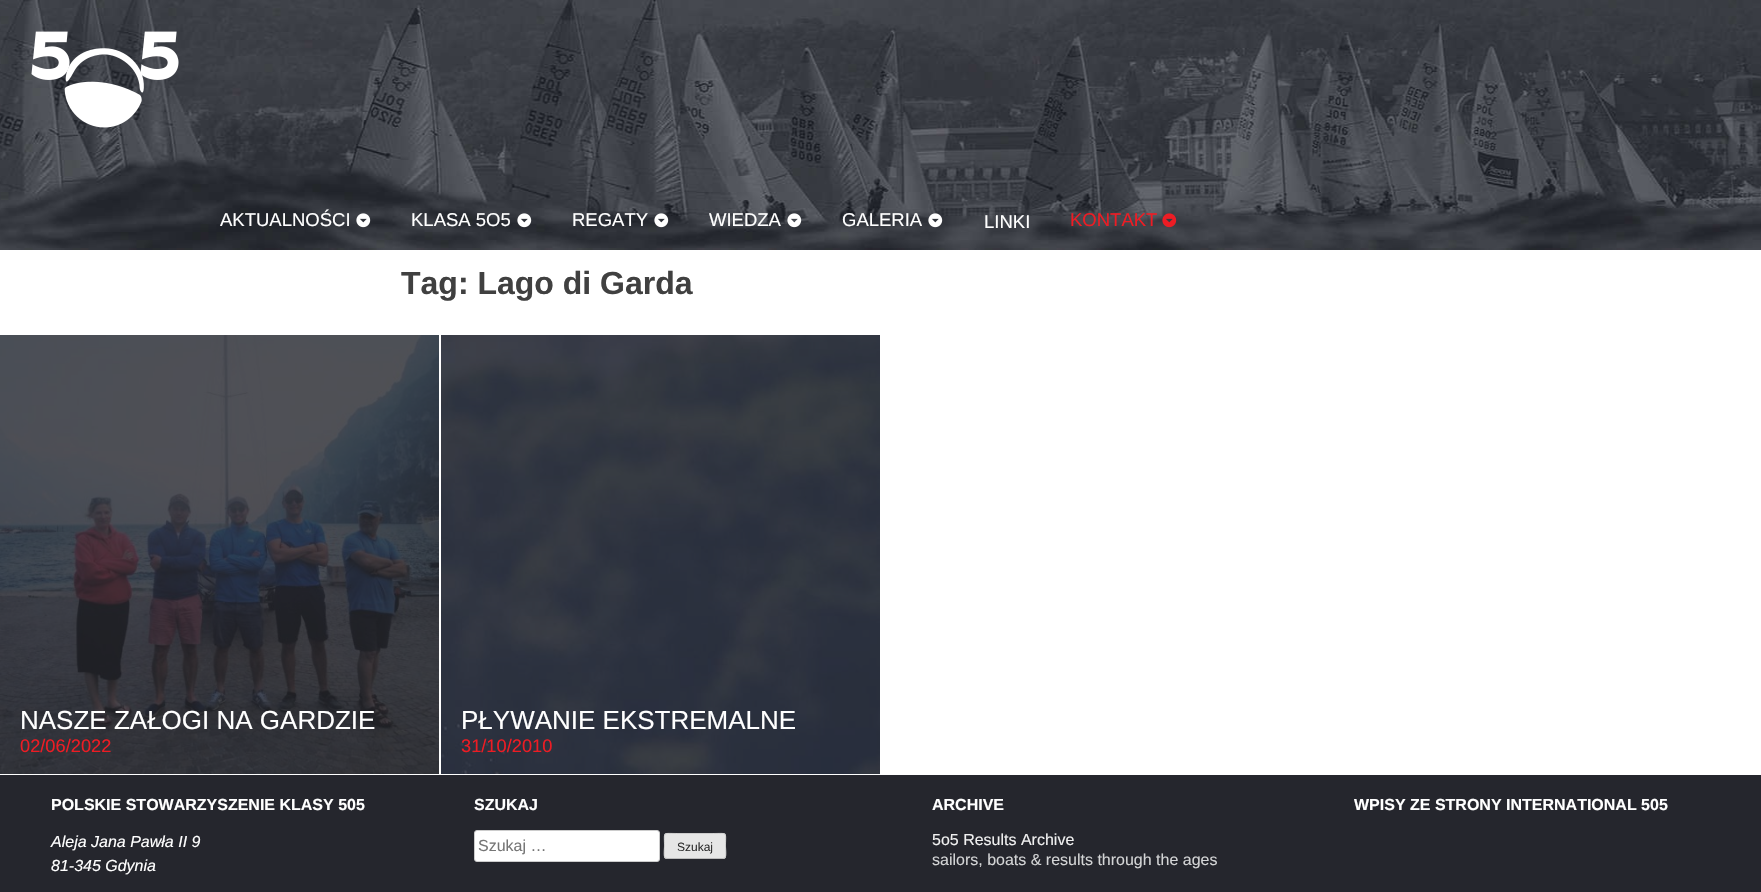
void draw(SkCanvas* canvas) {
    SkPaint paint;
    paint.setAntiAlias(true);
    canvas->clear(0xFFFFFFFF);
    canvas->drawImageRect(SkImages::DeferredFromEncodedData(SkData::MakeFromFileName("img1.png")), SkRect::MakeXYWH(0, 0, 1761, 250), SkSamplingOptions());
    canvas->drawImageRect(SkImages::DeferredFromEncodedData(SkData::MakeFromFileName("img2.png")), SkRect::MakeXYWH(31, 31, 148, 97), SkSamplingOptions());
    SkFont font1(fontMgr->matchFamilyStyle("Liberation Sans", SkFontStyle::Normal()), 18.5f);
    font1.setSubpixel(true);
    paint.setColor(0xFFFFFFFF);
    canvas->drawString("AKTUALNOŚCI", 220, 226, font1, paint);
    canvas->drawImageRect(SkImages::DeferredFromEncodedData(SkData::MakeFromFileName("img3.png")), SkRect::MakeXYWH(356, 213, 15, 15), SkSamplingOptions());
    canvas->drawString("KLASA 5O5", 411, 226, font1, paint);
    canvas->drawImageRect(SkImages::DeferredFromEncodedData(SkData::MakeFromFileName("img4.png")), SkRect::MakeXYWH(517, 213, 15, 15), SkSamplingOptions());
    canvas->drawString("REGATY", 572, 226, font1, paint);
    canvas->drawImageRect(SkImages::DeferredFromEncodedData(SkData::MakeFromFileName("img5.png")), SkRect::MakeXYWH(654, 213, 15, 15), SkSamplingOptions());
    canvas->drawString("WIEDZA", 709, 226, font1, paint);
    canvas->drawImageRect(SkImages::DeferredFromEncodedData(SkData::MakeFromFileName("img6.png")), SkRect::MakeXYWH(787, 213, 15, 15), SkSamplingOptions());
    canvas->drawString("GALERIA", 842, 226, font1, paint);
    canvas->drawImageRect(SkImages::DeferredFromEncodedData(SkData::MakeFromFileName("img7.png")), SkRect::MakeXYWH(928, 213, 15, 15), SkSamplingOptions());
    canvas->drawString("LINKI", 984, 228, font1, paint);
    paint.setColor(0xFFED1C24);
    canvas->drawString("KONTAKT", 1070, 226, font1, paint);
    canvas->drawImageRect(SkImages::DeferredFromEncodedData(SkData::MakeFromFileName("img8.png")), SkRect::MakeXYWH(1162, 213, 15, 15), SkSamplingOptions());
    SkFont font2(fontMgr->matchFamilyStyle("Liberation Sans", SkFontStyle::Bold()), 32);
    font2.setSubpixel(true);
    paint.setColor(0xFF404040);
    canvas->drawString("Tag: Lago di Garda", 401, 294, font2, paint);
    canvas->drawImageRect(SkImages::DeferredFromEncodedData(SkData::MakeFromFileName("img9.png")), SkRect::MakeXYWH(0, 335, 439, 439), SkSamplingOptions());
    SkFont font3(fontMgr->matchFamilyStyle("Liberation Sans", SkFontStyle::Normal()), 26);
    font3.setSubpixel(true);
    paint.setColor(0xFFFFFFFF);
    canvas->drawString("NASZE ZAŁOGI NA GARDZIE", 20, 729, font3, paint);
    SkFont font4(fontMgr->matchFamilyStyle("Liberation Sans", SkFontStyle::Normal()), 18.25f);
    font4.setSubpixel(true);
    paint.setColor(0xFFED1C24);
    canvas->drawString("02/06/2022", 20, 752, font4, paint);
    canvas->drawImageRect(SkImages::DeferredFromEncodedData(SkData::MakeFromFileName("img10.png")), SkRect::MakeXYWH(441, 335, 439, 439), SkSamplingOptions());
    paint.setColor(0xFFFFFFFF);
    canvas->drawString("PŁYWANIE EKSTREMALNE", 461, 729, font3, paint);
    paint.setColor(0xFFED1C24);
    canvas->drawString("31/10/2010", 461, 752, font4, paint);
    paint.setColor(0xFF25262D);
    canvas->drawRect(SkRect::MakeXYWH(0, 775, 1761, 117), paint);
    SkFont font5(fontMgr->matchFamilyStyle("Liberation Sans", SkFontStyle::Bold()), 16);
    font5.setSubpixel(true);
    paint.setColor(0xFFFFFFFF);
    canvas->drawString("POLSKIE STOWARZYSZENIE KLASY 505", 51, 810, font5, paint);
    SkFont font6(fontMgr->matchFamilyStyle("Liberation Sans", SkFontStyle::Italic()), 16);
    font6.setSubpixel(true);
    canvas->drawString("Aleja Jana Pawła II 9", 51, 847, font6, paint);
    canvas->drawString("81-345 Gdynia", 51, 871, font6, paint);
    canvas->drawString("SZUKAJ", 474, 810, font5, paint);
    canvas->drawRoundRect(SkRect::MakeXYWH(474.5f, 830.5f, 185, 31), 2.5f, 2.5f, paint);
    paint.setStyle(SkPaint::kStroke_Style);
    paint.setStrokeWidth(1);
    paint.setColor(0xFFCCCCCC);
    canvas->drawRoundRect(SkRect::MakeXYWH(474.5f, 830.5f, 185, 31), 2.5f, 2.5f, paint);
    SkFont font7(fontMgr->matchFamilyStyle("Liberation Sans", SkFontStyle::Normal()), 16);
    font7.setSubpixel(true);
    paint.setStyle(SkPaint::kFill_Style);
    paint.setColor(0xFF757575);
    canvas->drawString("Szukaj …", 478, 851, font7, paint);
    paint.setColor(0xFFE6E6E6);
    canvas->drawRoundRect(SkRect::MakeXYWH(664, 833, 62, 26), 3, 3, paint);
    paint.setStyle(SkPaint::kStroke_Style);
    paint.setColor(0xFFBBBBBB);
    canvas->drawPath(SkPathBuilder().moveTo(725, 858).lineTo(723, 858.5f).lineTo(667, 858.5f).lineTo(665, 858).detach(), paint);
    paint.setColor(0xFFCCCCCC);
    canvas->drawPath(SkPathBuilder().moveTo(665, 858).cubicTo(663.5f, 856, 664.5f, 848.5f, 664.5f, 846).cubicTo(664.5f, 831.5f, 662, 833.5f, 676.5f, 833.5f).lineTo(713.5f, 833.5f).cubicTo(728, 833.5f, 725.5f, 831.5f, 725.5f, 846).cubicTo(725.5f, 848.5f, 726.5f, 856, 725, 858).detach(), paint);
    SkFont font8(fontMgr->matchFamilyStyle("Liberation Sans", SkFontStyle::Normal()), 12);
    font8.setSubpixel(true);
    paint.setStyle(SkPaint::kFill_Style);
    paint.setColor(0xFF2E2E2E);
    canvas->drawString("Szukaj", 677, 851, font8, paint);
    paint.setColor(0xFFFFFFFF);
    canvas->drawString("ARCHIVE", 932, 810, font5, paint);
    paint.setColor(0xFFF0F0F0);
    canvas->drawString("5o5 Results Archive", 932, 845, font7, paint);
    paint.setColor(0xFFD3D4D5);
    canvas->drawString("sailors, boats & results through the ages", 932, 865, font7, paint);
    paint.setColor(0xFFFFFFFF);
    canvas->drawString("WPISY ZE STRONY INTERNATIONAL 505", 1354, 810, font5, paint);
}
